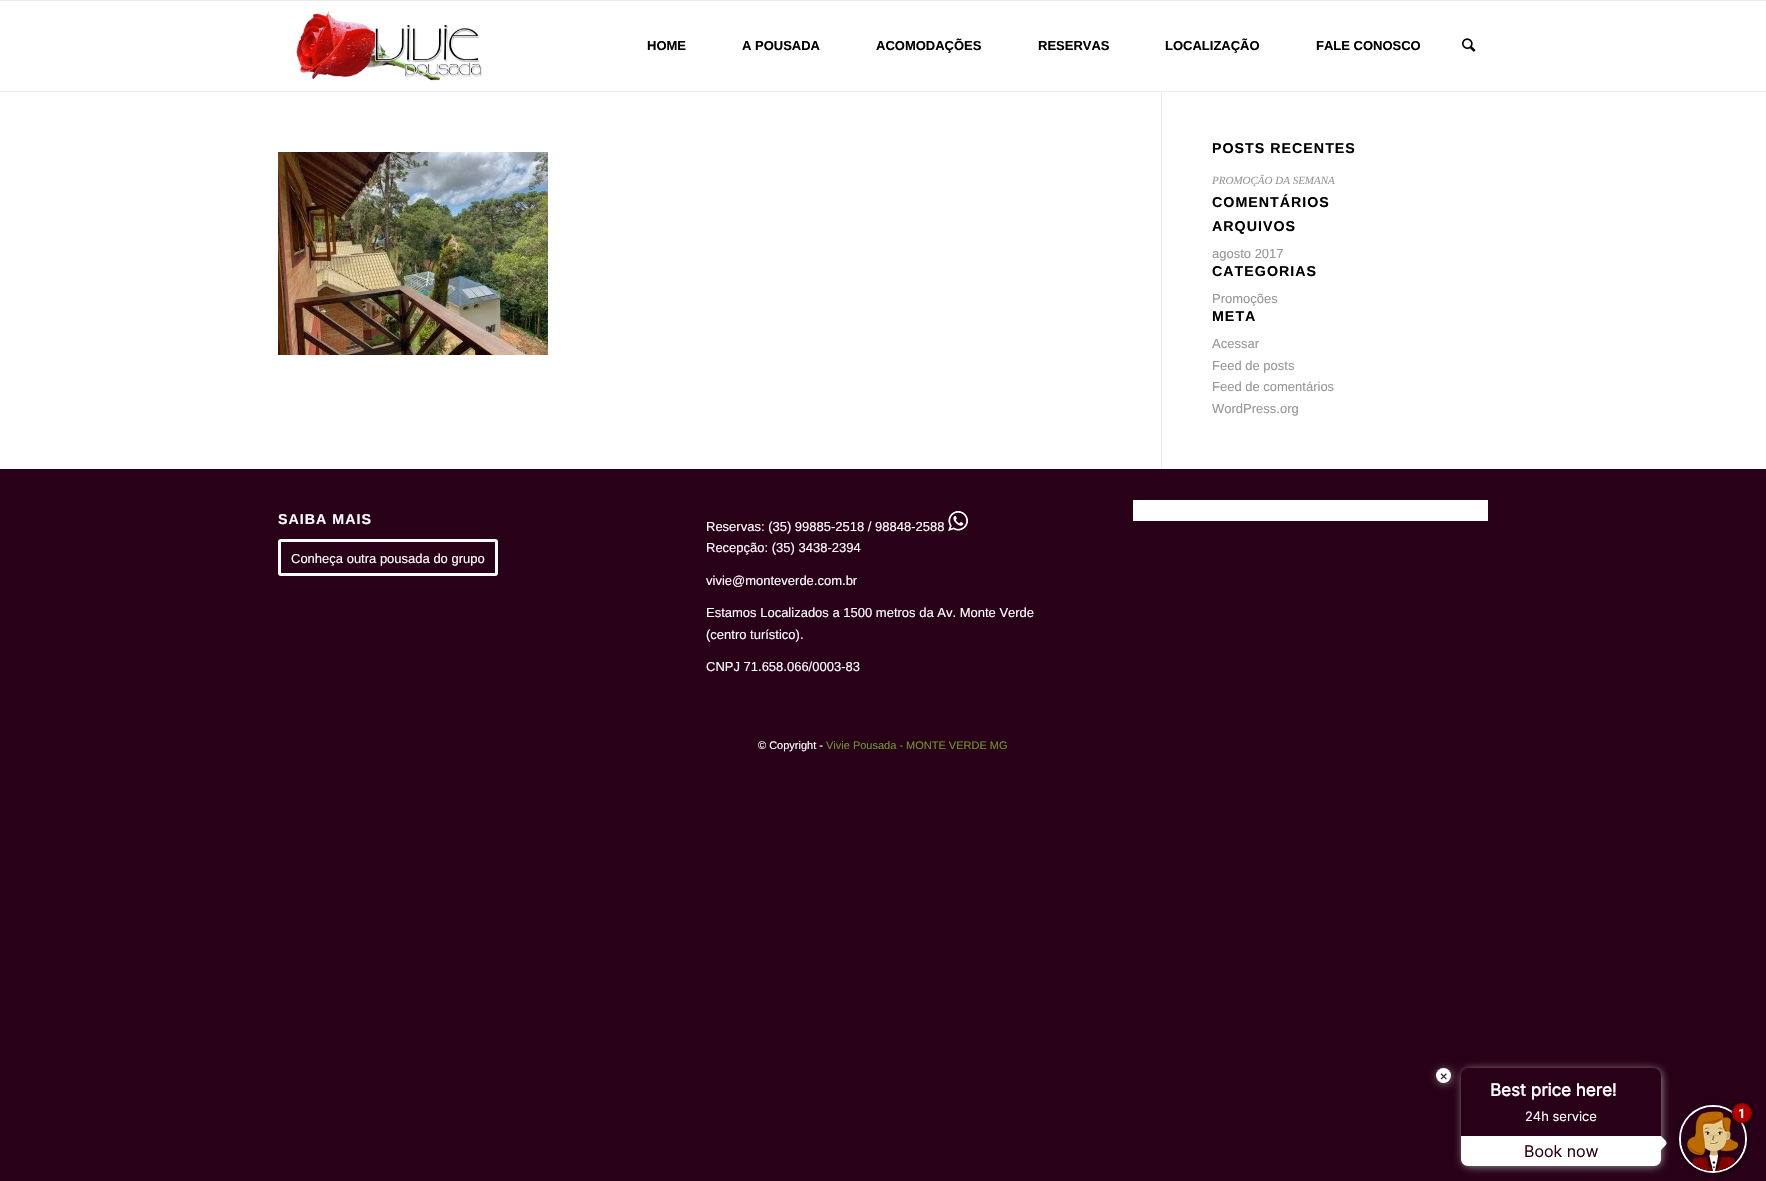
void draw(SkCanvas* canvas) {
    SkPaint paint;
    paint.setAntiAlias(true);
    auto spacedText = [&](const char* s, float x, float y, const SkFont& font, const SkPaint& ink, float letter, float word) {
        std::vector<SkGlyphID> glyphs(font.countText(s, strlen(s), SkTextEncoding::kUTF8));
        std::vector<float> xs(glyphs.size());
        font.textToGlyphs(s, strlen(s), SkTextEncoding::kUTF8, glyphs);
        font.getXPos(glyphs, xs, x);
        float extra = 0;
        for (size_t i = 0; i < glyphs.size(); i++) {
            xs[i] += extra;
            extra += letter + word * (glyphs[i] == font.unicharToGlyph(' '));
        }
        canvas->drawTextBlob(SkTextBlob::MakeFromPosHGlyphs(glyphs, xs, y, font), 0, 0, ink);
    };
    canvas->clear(0xFF280017);
    paint.setColor(0xFFFFFFFF);
    canvas->drawRect(SkRect::MakeXYWH(0, 92, 1766, 377), paint);
    canvas->drawRect(SkRect::MakeXYWH(0, 1, 1766, 89), paint);
    paint.setColor(0xFFEBEBEB);
    canvas->drawRect(SkRect::MakeXYWH(0, 0, 1766, 1), paint);
    canvas->drawRect(SkRect::MakeXYWH(1161, 91, 1, 378), paint);
    canvas->drawRect(SkRect::MakeXYWH(0, 91, 1766, 1), paint);
    canvas->drawImageRect(SkImages::DeferredFromEncodedData(SkData::MakeFromFileName("img1.png")), SkRect::MakeXYWH(296, 11, 186, 70), SkSamplingOptions());
    SkFont font1(fontMgr->matchFamilyStyle("Liberation Sans", SkFontStyle::Bold()), 13);
    font1.setSubpixel(true);
    paint.setColor(0xFF000000);
    canvas->drawString("HOME", 647, 50, font1, paint);
    canvas->drawString("A POUSADA", 742, 50, font1, paint);
    canvas->drawString("ACOMODAÇÕES", 876, 50, font1, paint);
    canvas->drawString("RESERVAS", 1038, 50, font1, paint);
    canvas->drawString("LOCALIZAÇÃO", 1165, 50, font1, paint);
    canvas->drawString("FALE CONOSCO", 1316, 50, font1, paint);
    canvas->drawImageRect(SkImages::DeferredFromEncodedData(SkData::MakeFromFileName("img2.png")), SkRect::MakeXYWH(1462, 38, 14, 14), SkSamplingOptions());
    paint.setColor(0xFFFEFEFE);
    canvas->drawRect(SkRect::MakeXYWH(0, 90, 1766, 1), paint);
    canvas->drawImageRect(SkImages::DeferredFromEncodedData(SkData::MakeFromFileName("img3.png")), SkRect::MakeXYWH(278, 152, 270, 203), SkSamplingOptions());
    SkFont font2(fontMgr->matchFamilyStyle("Liberation Sans", SkFontStyle::Bold()), 14.25f);
    font2.setSubpixel(true);
    paint.setColor(0xFF000000);
    spacedText("POSTS RECENTES", 1212, 153, font2, paint, 1, 0);
    SkFont font3(fontMgr->matchFamilyStyle("Liberation Serif", SkFontStyle::Italic()), 11);
    font3.setSubpixel(true);
    paint.setColor(0xFF969696);
    canvas->drawString("PROMOÇÃO DA SEMANA", 1212, 184, font3, paint);
    paint.setColor(0xFF000000);
    spacedText("COMENTÁRIOS", 1212, 207, font2, paint, 1, 0);
    spacedText("ARQUIVOS", 1212, 231, font2, paint, 1, 0);
    SkFont font4(fontMgr->matchFamilyStyle("Liberation Sans", SkFontStyle::Normal()), 13);
    font4.setSubpixel(true);
    paint.setColor(0xFF969696);
    canvas->drawString("agosto 2017", 1212, 258, font4, paint);
    paint.setColor(0xFF000000);
    spacedText("CATEGORIAS", 1212, 276, font2, paint, 1, 0);
    paint.setColor(0xFF969696);
    canvas->drawString("Promoções", 1212, 303, font4, paint);
    paint.setColor(0xFF000000);
    spacedText("META", 1212, 321, font2, paint, 1, 0);
    paint.setColor(0xFF969696);
    canvas->drawString("Acessar", 1212, 348, font4, paint);
    canvas->drawString("Feed de posts", 1212, 370, font4, paint);
    canvas->drawString("Feed de comentários", 1212, 391, font4, paint);
    canvas->drawString("WordPress.org", 1212, 413, font4, paint);
    paint.setColor(0xFFFFFFFF);
    canvas->drawRect(SkRect::MakeXYWH(1133, 500, 355, 21), paint);
    spacedText("SAIBA MAIS", 278, 524, font2, paint, 1, 0);
    paint.setStyle(SkPaint::kStroke_Style);
    paint.setStrokeWidth(3);
    canvas->drawRoundRect(SkRect::MakeXYWH(279.5f, 540.5f, 217, 34), 1.5f, 1.5f, paint);
    paint.setStyle(SkPaint::kFill_Style);
    canvas->drawString("Conheça outra pousada do grupo", 291, 563, font4, paint);
    canvas->drawString("Reservas: (35) 99885-2518 / 98848-2588", 706, 531, font4, paint);
    canvas->drawImageRect(SkImages::DeferredFromEncodedData(SkData::MakeFromFileName("img4.png")), SkRect::MakeXYWH(948, 511, 20, 20), SkSamplingOptions());
    canvas->drawString("Recepção: (35) 3438-2394", 706, 552, font4, paint);
    canvas->drawString("vivie@monteverde.com.br", 706, 585, font4, paint);
    canvas->drawString("Estamos Localizados a 1500 metros da Av. Monte Verde", 706, 617, font4, paint);
    canvas->drawString("(centro turístico).", 706, 639, font4, paint);
    canvas->drawString("CNPJ 71.658.066/0003-83", 706, 671, font4, paint);
    SkFont font5(fontMgr->matchFamilyStyle("Liberation Sans", SkFontStyle::Normal()), 11);
    font5.setSubpixel(true);
    canvas->drawString("© Copyright -", 758, 749, font5, paint);
    paint.setColor(0xFF719430);
    canvas->drawString("Vivie Pousada - MONTE VERDE MG", 826, 749, font5, paint);
    paint.setColor(0xFF000000);
    paint.setMaskFilter(SkMaskFilter::MakeBlur(kNormal_SkBlurStyle, 5));
    canvas->drawRoundRect(SkRect::MakeXYWH(1683, 1109, 62, 62), 31, 31, paint);
    paint.setMaskFilter(nullptr);
    paint.setStyle(SkPaint::kStroke_Style);
    paint.setStrokeWidth(2);
    paint.setColor(0xFFFFFFFF);
    canvas->drawCircle(1713, 1139, 33, paint);
    paint.setStyle(SkPaint::kFill_Style);
    paint.setColor(0xFFAAAAAA);
    paint.setMaskFilter(SkMaskFilter::MakeBlur(kNormal_SkBlurStyle, 5));
    canvas->drawRoundRect(SkRect::MakeXYWH(1463, 1070, 198, 96), 7, 7, paint);
    paint.setMaskFilter(nullptr);
    paint.setColor(0xFF280017);
    canvas->drawRoundRect(SkRect::MakeXYWH(1461, 1068, 200, 98), 8, 8, paint);
    paint.setColor(0xFFAAAAAA);
    paint.setMaskFilter(SkMaskFilter::MakeBlur(kNormal_SkBlurStyle, 5));
    canvas->drawRoundRect(SkRect::MakeXYWH(1438, 1070, 13, 13), 6.5f, 6.5f, paint);
    paint.setMaskFilter(nullptr);
    paint.setColor(0xFFFFFFFF);
    canvas->drawCircle(1443.5f, 1075.5f, 7.5f, paint);
    SkFont font6(fontMgr->matchFamilyStyle("Roboto", SkFontStyle::Normal()), 14);
    font6.setSubpixel(true);
    paint.setColor(0xFF333333);
    canvas->drawString("×", 1440, 1081, font6, paint);
    SkFont font7(fontMgr->matchFamilyStyle("Inter", SkFontStyle::Bold()), 17);
    font7.setSubpixel(true);
    paint.setColor(0xFFFFFFFF);
    canvas->drawString("Best price here!", 1490, 1096, font7, paint);
    SkFont font8(fontMgr->matchFamilyStyle("Inter", SkFontStyle::Normal()), 13);
    font8.setSubpixel(true);
    canvas->drawString("24h service", 1525, 1121, font8, paint);
    canvas->drawPath(SkPathBuilder().moveTo(1461, 1136).lineTo(1661, 1136).lineTo(1661, 1159).cubicTo(1661, 1163, 1658, 1166, 1654, 1166).lineTo(1468, 1166).cubicTo(1464, 1166, 1461, 1163, 1461, 1159).close().detach(), paint);
    canvas->drawPath(SkPathBuilder().moveTo(1661, 1136).cubicTo(1668.5f, 1143.5f, 1668.5f, 1142.5f, 1661, 1150).lineTo(1654, 1143).close().detach(), paint);
    SkFont font9(fontMgr->matchFamilyStyle("Inter", SkFontStyle::Normal()), 16);
    font9.setSubpixel(true);
    paint.setColor(0xFF280017);
    canvas->drawString("Book now", 1524, 1157, font9, paint);
    canvas->drawCircle(1713, 1139, 32, paint);
    canvas->drawImageRect(SkImages::DeferredFromEncodedData(SkData::MakeFromFileName("img5.png")), SkRect::MakeXYWH(1687, 1111, 51, 60), SkSamplingOptions());
    paint.setColor(0xFF000000);
    paint.setMaskFilter(SkMaskFilter::MakeBlur(kNormal_SkBlurStyle, 2.5f));
    canvas->drawRoundRect(SkRect::MakeXYWH(1732, 1103, 20, 20), 10, 10, paint);
    paint.setMaskFilter(nullptr);
    paint.setColor(0xFFB60000);
    canvas->drawCircle(1742, 1113, 9, paint);
    paint.setStyle(SkPaint::kStroke_Style);
    paint.setColor(0xFFA30000);
    canvas->drawCircle(1742, 1113, 9, paint);
    SkFont font10(fontMgr->matchFamilyStyle("Roboto", SkFontStyle::Bold()), 13);
    font10.setSubpixel(true);
    paint.setStyle(SkPaint::kFill_Style);
    paint.setColor(0xFFFFFFFF);
    canvas->drawString("1", 1738, 1118, font10, paint);
}
